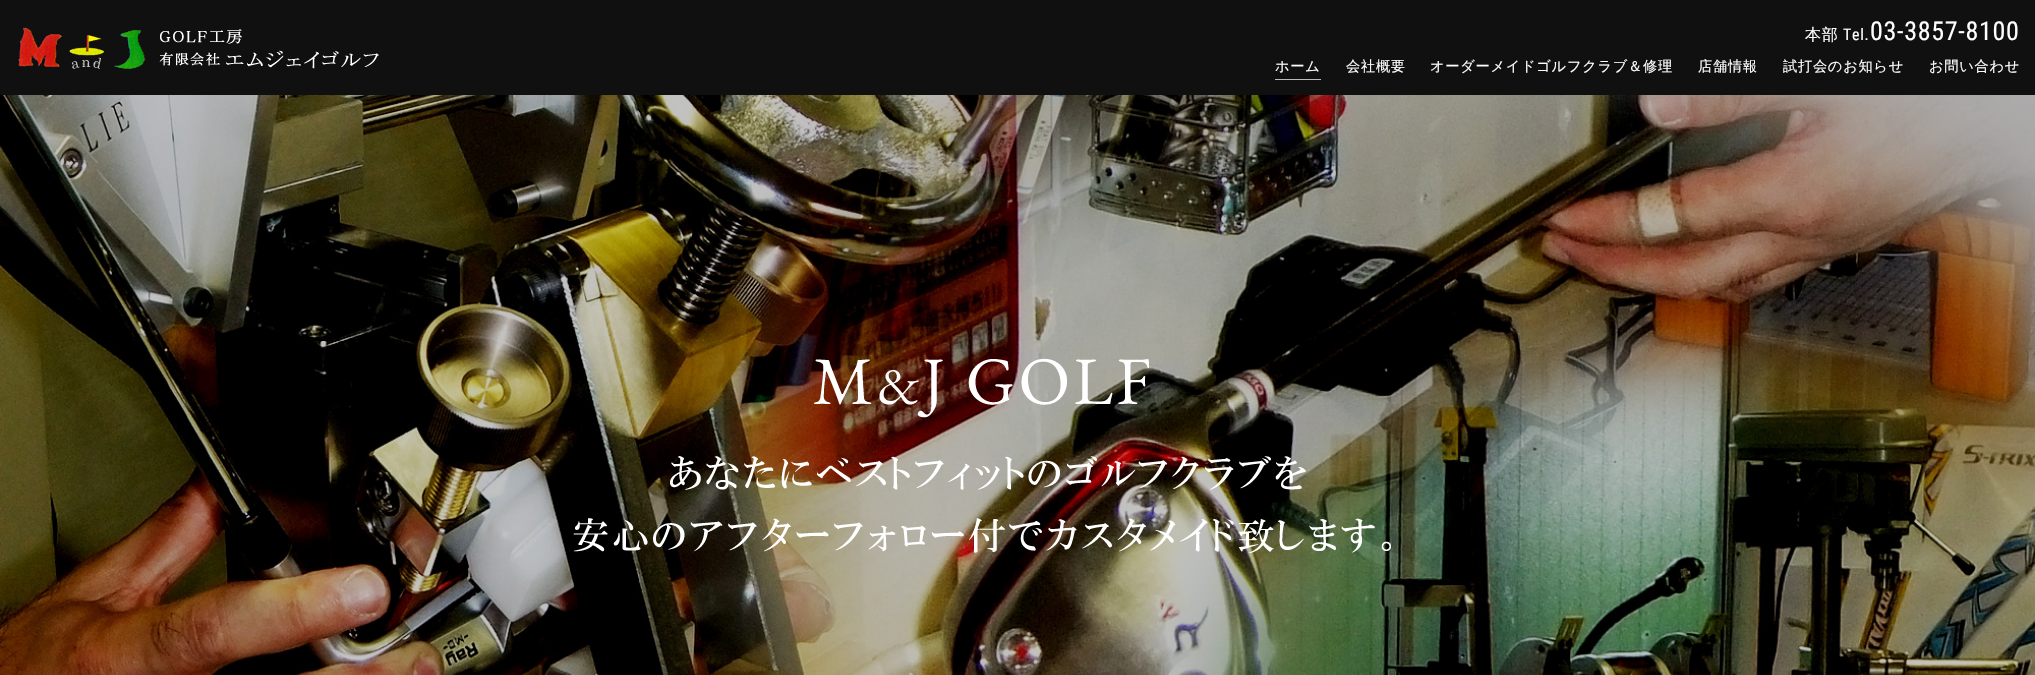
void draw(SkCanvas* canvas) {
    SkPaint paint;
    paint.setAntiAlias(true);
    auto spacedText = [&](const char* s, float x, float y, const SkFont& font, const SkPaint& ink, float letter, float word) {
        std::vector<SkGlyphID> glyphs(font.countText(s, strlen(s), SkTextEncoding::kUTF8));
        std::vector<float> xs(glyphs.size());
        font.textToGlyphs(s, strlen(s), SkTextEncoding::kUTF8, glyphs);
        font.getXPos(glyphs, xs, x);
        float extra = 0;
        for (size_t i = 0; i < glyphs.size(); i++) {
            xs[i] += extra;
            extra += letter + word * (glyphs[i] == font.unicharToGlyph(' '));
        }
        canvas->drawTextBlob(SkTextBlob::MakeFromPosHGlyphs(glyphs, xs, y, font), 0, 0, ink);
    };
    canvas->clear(0xFF101010);
    canvas->drawImageRect(SkImages::DeferredFromEncodedData(SkData::MakeFromFileName("img1.png")), SkRect::MakeXYWH(18, 27, 361, 42), SkSamplingOptions());
    SkFont font1(fontMgr->matchFamilyStyle("WenQuanYi Zen Hei", SkFontStyle(500, SkFontStyle::kNormal_Width, SkFontStyle::kUpright_Slant)), 16);
    font1.setSubpixel(true);
    paint.setColor(0xFFFFFFFF);
    spacedText("本部", 1805, 40, font1, paint, 0.7f, 0);
    SkFont font2(fontMgr->matchFamilyStyle("Roboto Condensed", SkFontStyle::Normal()), 16);
    font2.setSubpixel(true);
    spacedText("Tel.", 1843, 40, font2, paint, 0.7f, 0);
    SkFont font3(fontMgr->matchFamilyStyle("Roboto Condensed", SkFontStyle::Normal()), 26);
    font3.setSubpixel(true);
    spacedText("03-3857-8100", 1870, 40, font3, paint, 0.7f, 0);
    paint.setColor(0xFFBBBBBB);
    canvas->drawRect(SkRect::MakeXYWH(1275, 79, 46, 1), paint);
    SkFont font4(fontMgr->matchFamilyStyle("WenQuanYi Zen Hei", SkFontStyle(500, SkFontStyle::kNormal_Width, SkFontStyle::kUpright_Slant)), 14.25f);
    font4.setSubpixel(true);
    paint.setColor(0xFFFFFFFF);
    spacedText("ホーム", 1275, 71, font4, paint, 0.7f, 0);
    spacedText("会社概要", 1346, 71, font4, paint, 0.7f, 0);
    spacedText("オーダーメイドゴルフクラブ＆修理", 1430, 71, font4, paint, 0.7f, 0);
    spacedText("店舗情報", 1698, 71, font4, paint, 0.7f, 0);
    spacedText("試打会のお知らせ", 1783, 71, font4, paint, 0.7f, 0);
    spacedText("お問い合わせ", 1929, 71, font4, paint, 0.7f, 0);
    canvas->drawImageRect(SkImages::DeferredFromEncodedData(SkData::MakeFromFileName("img2.png")), SkRect::MakeXYWH(0, 95, 2035, 580), SkSamplingOptions());
    canvas->drawImageRect(SkImages::DeferredFromEncodedData(SkData::MakeFromFileName("img3.png")), SkRect::MakeXYWH(573, 358, 818, 195), SkSamplingOptions());
}
